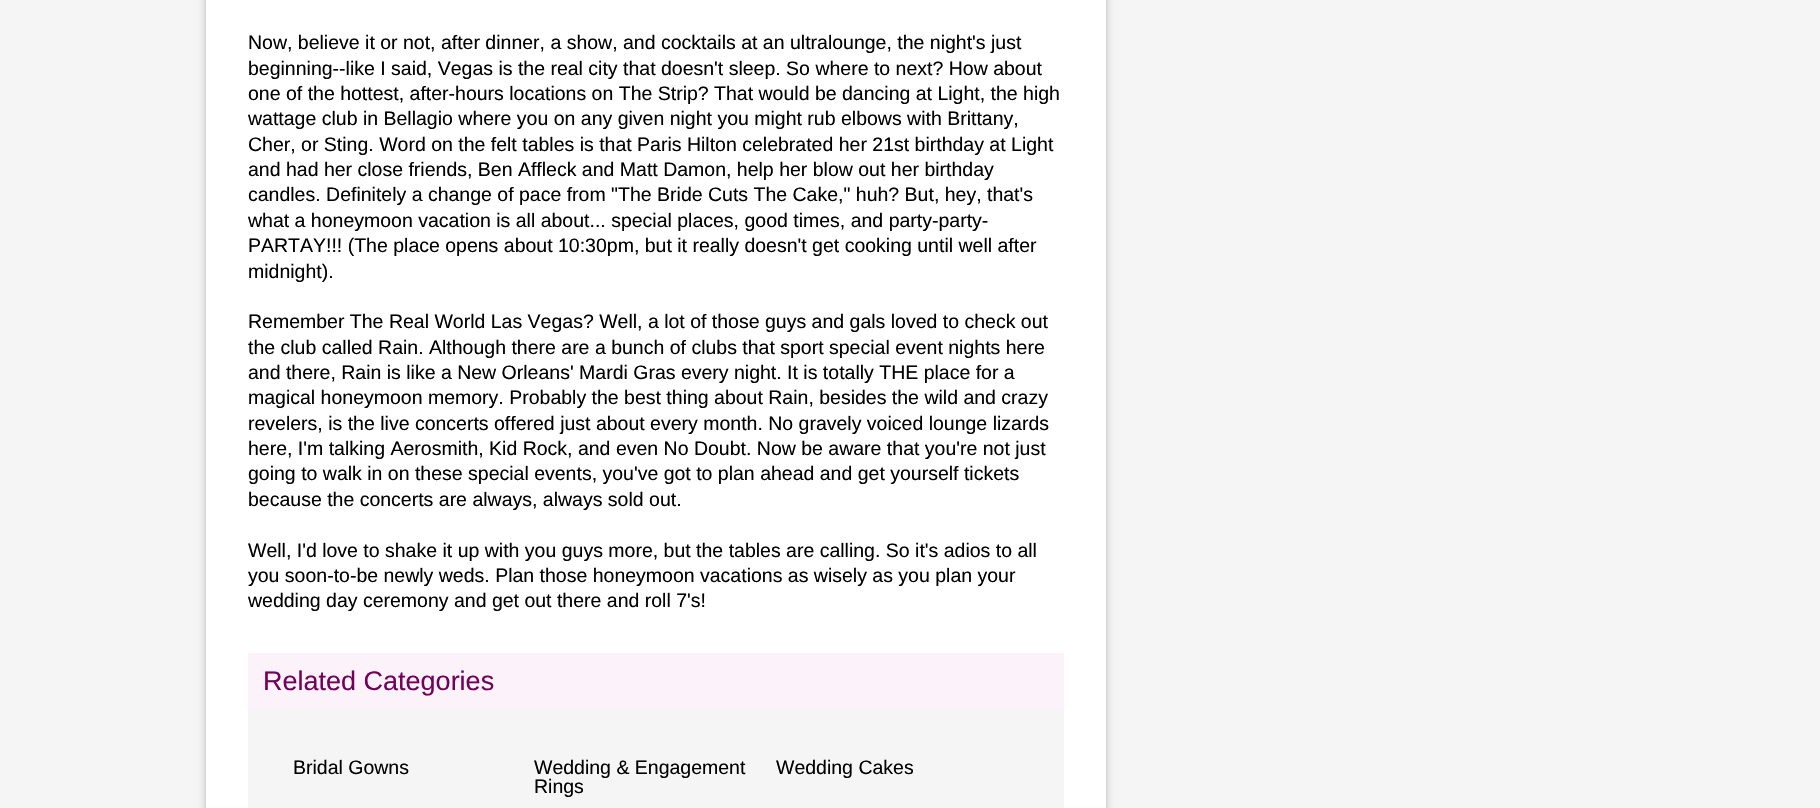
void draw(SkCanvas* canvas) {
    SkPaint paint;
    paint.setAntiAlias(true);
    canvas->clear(0xFFF5F5F5);
    paint.setColor(0x40000000);
    paint.setMaskFilter(SkMaskFilter::MakeBlur(kNormal_SkBlurStyle, 4));
    canvas->drawRect(SkRect::MakeXYWH(206, -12, 900, 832), paint);
    paint.setMaskFilter(nullptr);
    paint.setColor(0xFFFFFFFF);
    canvas->drawRect(SkRect::MakeXYWH(206, 0, 900, 808), paint);
    SkFont font1(fontMgr->matchFamilyStyle("Liberation Sans", SkFontStyle::Normal()), 19.5f);
    font1.setSubpixel(true);
    paint.setColor(0xFF000000);
    canvas->drawString("Now, believe it or not, after dinner, a show, and cocktails at an ultralounge, the night's just", 248, 49, font1, paint);
    canvas->drawString("beginning--like I said, Vegas is the real city that doesn't sleep. So where to next? How about", 248, 75, font1, paint);
    canvas->drawString("one of the hottest, after-hours locations on The Strip? That would be dancing at Light, the high", 248, 100, font1, paint);
    canvas->drawString("wattage club in Bellagio where you on any given night you might rub elbows with Brittany,", 248, 125, font1, paint);
    canvas->drawString("Cher, or Sting. Word on the felt tables is that Paris Hilton celebrated her 21st birthday at Light", 248, 151, font1, paint);
    canvas->drawString("and had her close friends, Ben Affleck and Matt Damon, help her blow out her birthday", 248, 176, font1, paint);
    canvas->drawString("candles. Definitely a change of pace from \"The Bride Cuts The Cake,\" huh? But, hey, that's", 248, 201, font1, paint);
    canvas->drawString("what a honeymoon vacation is all about... special places, good times, and party-party-", 248, 227, font1, paint);
    canvas->drawString("PARTAY!!! (The place opens about 10:30pm, but it really doesn't get cooking until well after", 248, 252, font1, paint);
    canvas->drawString("midnight).", 248, 278, font1, paint);
    canvas->drawString("Remember The Real World Las Vegas? Well, a lot of those guys and gals loved to check out", 248, 328, font1, paint);
    canvas->drawString("the club called Rain. Although there are a bunch of clubs that sport special event nights here", 248, 354, font1, paint);
    canvas->drawString("and there, Rain is like a New Orleans' Mardi Gras every night. It is totally THE place for a", 248, 379, font1, paint);
    canvas->drawString("magical honeymoon memory. Probably the best thing about Rain, besides the wild and crazy", 248, 404, font1, paint);
    canvas->drawString("revelers, is the live concerts offered just about every month. No gravely voiced lounge lizards", 248, 430, font1, paint);
    canvas->drawString("here, I'm talking Aerosmith, Kid Rock, and even No Doubt. Now be aware that you're not just", 248, 455, font1, paint);
    canvas->drawString("going to walk in on these special events, you've got to plan ahead and get yourself tickets", 248, 480, font1, paint);
    canvas->drawString("because the concerts are always, always sold out.", 248, 506, font1, paint);
    canvas->drawString("Well, I'd love to shake it up with you guys more, but the tables are calling. So it's adios to all", 248, 557, font1, paint);
    canvas->drawString("you soon-to-be newly weds. Plan those honeymoon vacations as wisely as you plan your", 248, 582, font1, paint);
    canvas->drawString("wedding day ceremony and get out there and roll 7's!", 248, 607, font1, paint);
    paint.setColor(0xFFFCF3FA);
    canvas->drawRect(SkRect::MakeXYWH(248, 653, 816, 57), paint);
    SkFont font2(fontMgr->matchFamilyStyle("Liberation Sans", SkFontStyle::Normal()), 27);
    font2.setSubpixel(true);
    paint.setColor(0xFF73005A);
    canvas->drawString("Related Categories", 263, 690, font2, paint);
    paint.setColor(0xFFF5F5F5);
    canvas->drawRect(SkRect::MakeXYWH(248, 710, 816, 98), paint);
    paint.setColor(0xFF000000);
    canvas->drawString("Bridal Gowns", 293, 774, font1, paint);
    canvas->drawString("Wedding & Engagement", 534, 774, font1, paint);
    canvas->drawString("Rings", 534, 793, font1, paint);
    canvas->drawString("Wedding Cakes", 776, 774, font1, paint);
}
